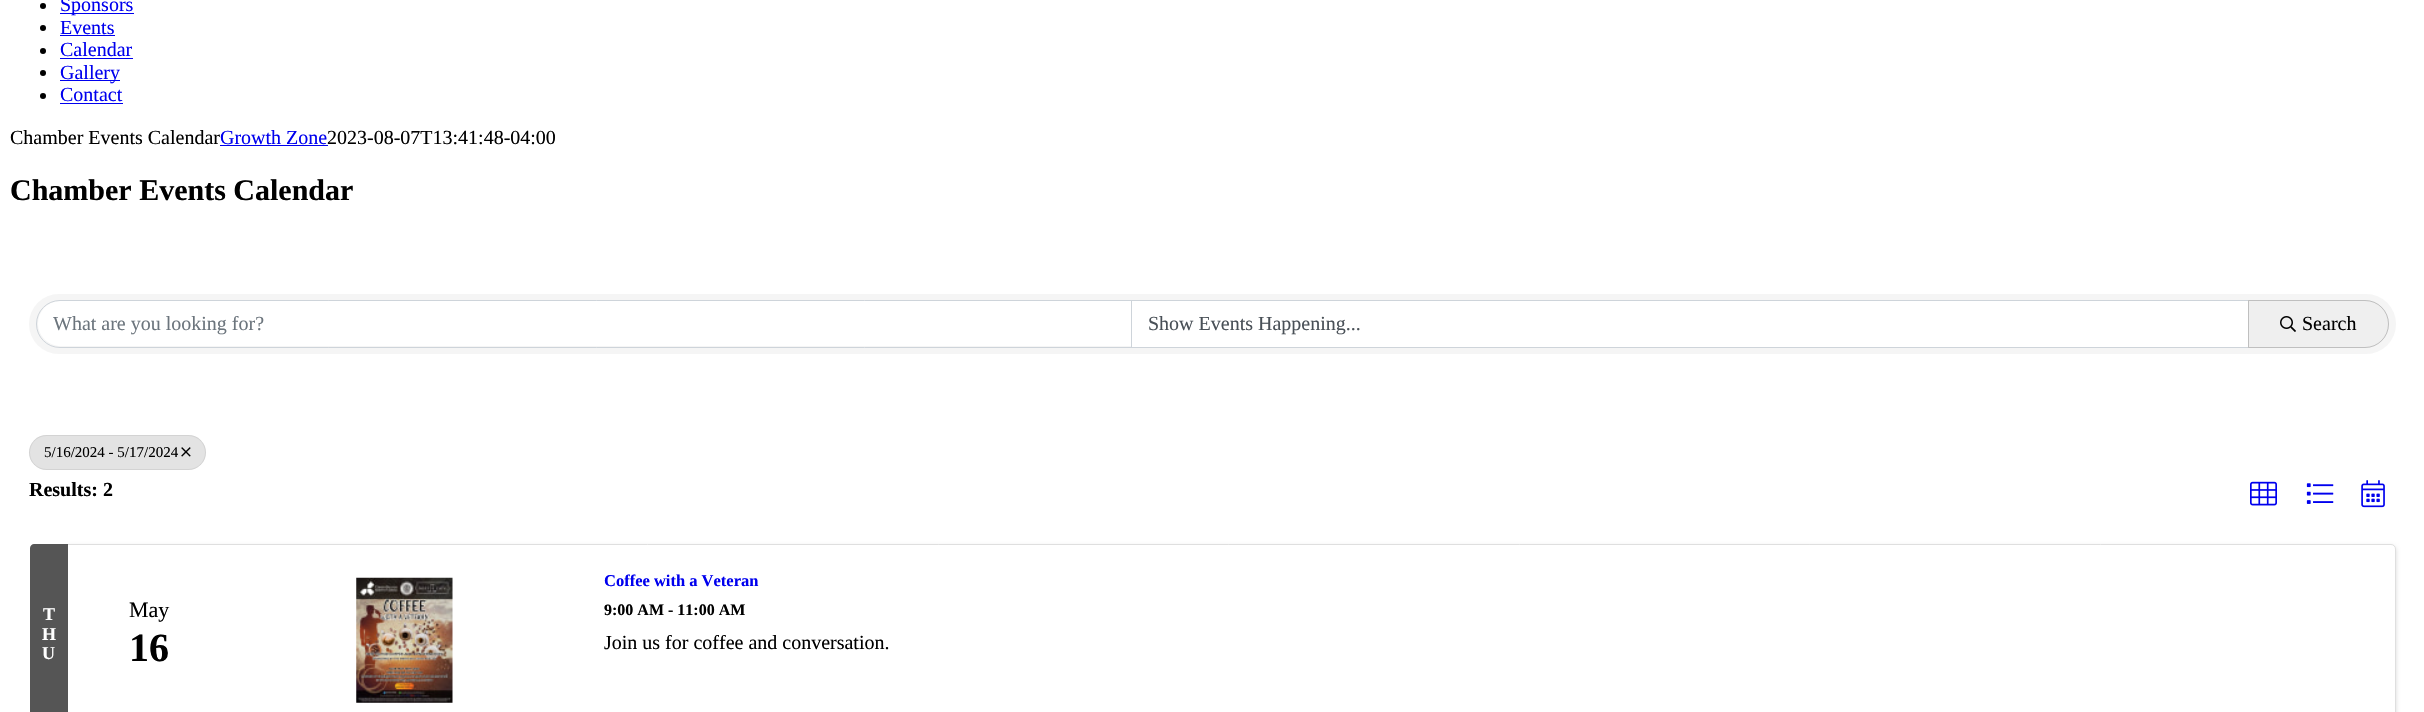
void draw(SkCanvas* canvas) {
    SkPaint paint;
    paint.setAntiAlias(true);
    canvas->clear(0xFFFFFFFF);
    paint.setColor(0xFF000000);
    canvas->drawCircle(43, 6, 3, paint);
    paint.setColor(0xFF0000EE);
    canvas->drawRect(SkRect::MakeXYWH(60, 13, 74, 1), paint);
    SkFont font1(fontMgr->matchFamilyStyle("Liberation Serif", SkFontStyle::Normal()), 20);
    font1.setSubpixel(true);
    canvas->drawString("Sponsors", 60, 11, font1, paint);
    paint.setColor(0xFF000000);
    canvas->drawCircle(43, 28, 3, paint);
    paint.setColor(0xFF0000EE);
    canvas->drawString("Events", 60, 34, font1, paint);
    canvas->drawRect(SkRect::MakeXYWH(60, 35, 55, 1), paint);
    paint.setColor(0xFF000000);
    canvas->drawCircle(43, 51, 3, paint);
    paint.setColor(0xFF0000EE);
    canvas->drawString("Calendar", 60, 56, font1, paint);
    canvas->drawRect(SkRect::MakeXYWH(60, 58, 73, 1), paint);
    paint.setColor(0xFF000000);
    canvas->drawCircle(43, 73, 3, paint);
    paint.setColor(0xFF0000EE);
    canvas->drawRect(SkRect::MakeXYWH(60, 80, 60, 1), paint);
    canvas->drawString("Gallery", 60, 79, font1, paint);
    paint.setColor(0xFF000000);
    canvas->drawCircle(43, 96, 3, paint);
    paint.setColor(0xFF0000EE);
    canvas->drawString("Contact", 60, 101, font1, paint);
    canvas->drawRect(SkRect::MakeXYWH(60, 103, 63, 1), paint);
    paint.setColor(0xFF000000);
    canvas->drawString("Chamber Events Calendar", 10, 144, font1, paint);
    paint.setColor(0xFF0000EE);
    canvas->drawString("Growth Zone", 220, 144, font1, paint);
    canvas->drawRect(SkRect::MakeXYWH(220, 145, 108, 1), paint);
    paint.setColor(0xFF000000);
    canvas->drawString("2023-08-07T13:41:48-04:00", 327, 144, font1, paint);
    SkFont font2(fontMgr->matchFamilyStyle("Liberation Serif", SkFontStyle::Bold()), 30);
    font2.setSubpixel(true);
    canvas->drawString("Chamber Events Calendar", 10, 200, font2, paint);
    paint.setColor(0xFFF5F5F5);
    canvas->drawRoundRect(SkRect::MakeXYWH(29, 294, 2367, 60), 30, 30, paint);
    paint.setColor(0xFFFFFFFF);
    canvas->drawPath(SkPathBuilder().moveTo(60.5f, 301).lineTo(1131, 301).lineTo(1131, 346).lineTo(60.5f, 346).cubicTo(48, 346, 38, 336, 38, 323.5f).cubicTo(38, 311, 48, 301, 60.5f, 301).close().detach(), paint);
    paint.setStyle(SkPaint::kStroke_Style);
    paint.setStrokeWidth(1);
    paint.setColor(0xFFCED4DA);
    canvas->drawPath(SkPathBuilder().moveTo(60, 300.5f).lineTo(1132.5f, 300.5f).lineTo(1132.5f, 347.5f).lineTo(60, 347.5f).cubicTo(47, 347.5f, 36.5f, 337, 36.5f, 324).cubicTo(36.5f, 311, 47, 300.5f, 60, 300.5f).close().detach(), paint);
    paint.setStyle(SkPaint::kFill_Style);
    paint.setColor(0xFF6C757D);
    canvas->drawString("What are you looking for?", 53, 330, font1, paint);
    paint.setColor(0xFFFFFFFF);
    canvas->drawRect(SkRect::MakeXYWH(1131.5f, 300.5f, 1117, 47), paint);
    paint.setStyle(SkPaint::kStroke_Style);
    paint.setColor(0xFFCED4DA);
    canvas->drawRect(SkRect::MakeXYWH(1131.5f, 300.5f, 1117, 47), paint);
    paint.setStyle(SkPaint::kFill_Style);
    paint.setColor(0xFF495057);
    canvas->drawString("Show Events Happening...", 1148, 330, font1, paint);
    paint.setColor(0xFFEFEFEF);
    canvas->drawPath(SkPathBuilder().moveTo(2248, 300).lineTo(2365, 300).cubicTo(2378.5f, 300, 2389, 310.5f, 2389, 324).cubicTo(2389, 337.5f, 2378.5f, 348, 2365, 348).lineTo(2248, 348).close().detach(), paint);
    paint.setStyle(SkPaint::kStroke_Style);
    paint.setColor(0x33000000);
    canvas->drawPath(SkPathBuilder().moveTo(2248.5f, 300.5f).lineTo(2365, 300.5f).cubicTo(2378, 300.5f, 2388.5f, 311, 2388.5f, 324).cubicTo(2388.5f, 337, 2378, 347.5f, 2365, 347.5f).lineTo(2248.5f, 347.5f).close().detach(), paint);
    canvas->drawImageRect(SkImages::DeferredFromEncodedData(SkData::MakeFromFileName("img1.png")), SkRect::MakeXYWH(2280, 316, 16, 16), SkSamplingOptions());
    paint.setStyle(SkPaint::kFill_Style);
    paint.setColor(0xFF000000);
    canvas->drawString("Search", 2302, 330, font1, paint);
    paint.setColor(0xFFE3E3E3);
    canvas->drawRoundRect(SkRect::MakeXYWH(29, 435, 177, 35), 17.5f, 17.5f, paint);
    paint.setStyle(SkPaint::kStroke_Style);
    paint.setColor(0x12000000);
    canvas->drawRoundRect(SkRect::MakeXYWH(29.5f, 435.5f, 176, 34), 17, 17, paint);
    SkFont font3(fontMgr->matchFamilyStyle("Liberation Serif", SkFontStyle::Normal()), 15);
    font3.setSubpixel(true);
    paint.setStyle(SkPaint::kFill_Style);
    paint.setColor(0xFF000000);
    canvas->drawString("5/16/2024 - 5/17/2024", 44, 457, font3, paint);
    canvas->drawImageRect(SkImages::DeferredFromEncodedData(SkData::MakeFromFileName("img2.png")), SkRect::MakeXYWH(181, 447, 10, 10), SkSamplingOptions());
    SkFont font4(fontMgr->matchFamilyStyle("Liberation Serif", SkFontStyle::Bold()), 20);
    font4.setSubpixel(true);
    canvas->drawString("Results: 2", 29, 496, font4, paint);
    canvas->drawImageRect(SkImages::DeferredFromEncodedData(SkData::MakeFromFileName("img3.png")), SkRect::MakeXYWH(2250, 481, 27, 25), SkSamplingOptions());
    canvas->drawImageRect(SkImages::DeferredFromEncodedData(SkData::MakeFromFileName("img4.png")), SkRect::MakeXYWH(2306, 483, 28, 21), SkSamplingOptions());
    canvas->drawImageRect(SkImages::DeferredFromEncodedData(SkData::MakeFromFileName("img5.png")), SkRect::MakeXYWH(2361, 480, 24, 28), SkSamplingOptions());
    paint.setColor(0x26000000);
    paint.setMaskFilter(SkMaskFilter::MakeBlur(kNormal_SkBlurStyle, 2));
    canvas->drawRoundRect(SkRect::MakeXYWH(66, 546, 2330, 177), 5, 5, paint);
    paint.setMaskFilter(nullptr);
    paint.setColor(0xFFFFFFFF);
    canvas->drawPath(SkPathBuilder().moveTo(66.5f, 544.5f).lineTo(2391, 544.5f).cubicTo(2393.5f, 544.5f, 2395.5f, 546.5f, 2395.5f, 549).lineTo(2395.5f, 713).cubicTo(2395.5f, 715.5f, 2393.5f, 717.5f, 2391, 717.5f).lineTo(66.5f, 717.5f).close().detach(), paint);
    paint.setStyle(SkPaint::kStroke_Style);
    paint.setColor(0xFFDFDFDF);
    canvas->drawPath(SkPathBuilder().moveTo(66.5f, 544.5f).lineTo(2391, 544.5f).cubicTo(2393.5f, 544.5f, 2395.5f, 546.5f, 2395.5f, 549).lineTo(2395.5f, 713).cubicTo(2395.5f, 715.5f, 2393.5f, 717.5f, 2391, 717.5f).lineTo(66.5f, 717.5f).close().detach(), paint);
    paint.setStyle(SkPaint::kFill_Style);
    paint.setColor(0xFF555555);
    canvas->drawPath(SkPathBuilder().moveTo(34, 544).lineTo(68, 544).lineTo(68, 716).lineTo(34, 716).cubicTo(32, 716, 30, 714, 30, 712).lineTo(30, 548).cubicTo(30, 546, 32, 544, 34, 544).close().detach(), paint);
    SkFont font5(fontMgr->matchFamilyStyle("Liberation Serif", SkFontStyle::Bold()), 18);
    font5.setSubpixel(true);
    paint.setColor(0xFFFFFFFF);
    canvas->drawString("T", 43, 620, font5, paint);
    canvas->drawString("H", 42, 640, font5, paint);
    canvas->drawString("U", 42, 659, font5, paint);
    SkFont font6(fontMgr->matchFamilyStyle("Liberation Serif", SkFontStyle::Normal()), 22);
    font6.setSubpixel(true);
    paint.setColor(0xFF000000);
    canvas->drawString("May", 129, 617, font6, paint);
    SkFont font7(fontMgr->matchFamilyStyle("Liberation Serif", SkFontStyle::Bold()), 40);
    font7.setSubpixel(true);
    canvas->drawString("16", 129, 661, font7, paint);
    canvas->drawImageRect(SkImages::DeferredFromEncodedData(SkData::MakeFromFileName("img6.png")), SkRect::MakeXYWH(356, 577, 97, 126), SkSamplingOptions());
    SkFont font8(fontMgr->matchFamilyStyle("Liberation Serif", SkFontStyle::Bold()), 16.5f);
    font8.setSubpixel(true);
    paint.setColor(0xFF0000EE);
    canvas->drawString("Coffee with a Veteran", 604, 586, font8, paint);
    SkFont font9(fontMgr->matchFamilyStyle("Liberation Serif", SkFontStyle::Bold()), 16);
    font9.setSubpixel(true);
    paint.setColor(0xFF000000);
    canvas->drawString("9:00 AM - 11:00 AM", 604, 615, font9, paint);
    canvas->drawString("Join us for coffee and conversation.", 604, 649, font1, paint);
}
